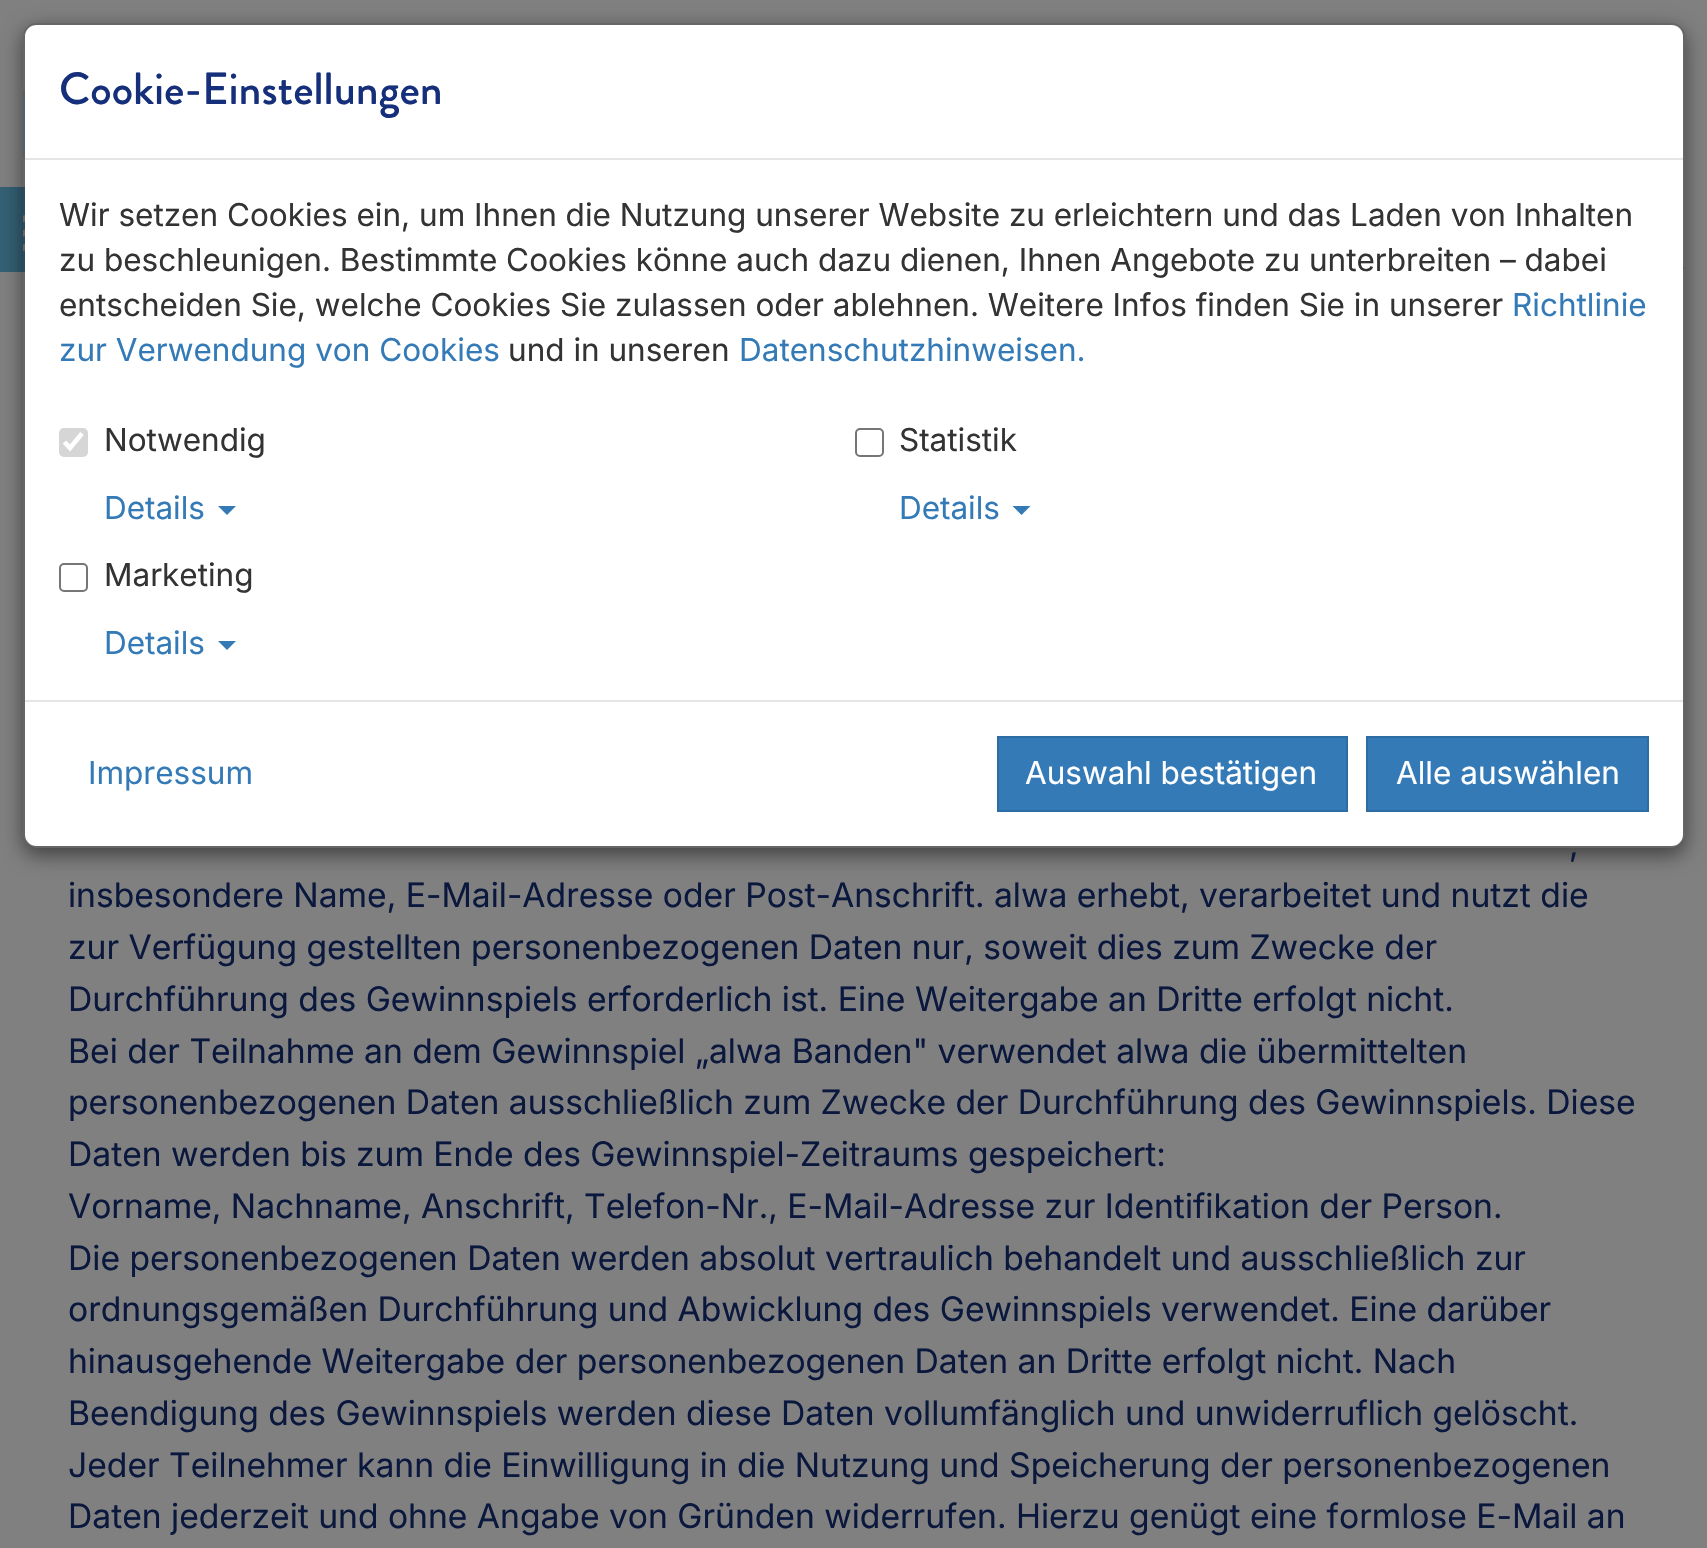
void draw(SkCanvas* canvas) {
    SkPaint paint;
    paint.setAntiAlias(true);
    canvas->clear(0xFF808080);
    paint.setStyle(SkPaint::kStroke_Style);
    paint.setStrokeWidth(2);
    paint.setColor(0xFF6E787E);
    canvas->drawRect(SkRect::MakeXYWH(24, 91, 853, 66), paint);
    paint.setStyle(SkPaint::kFill_Style);
    paint.setColor(0xFF345F74);
    canvas->drawRect(SkRect::MakeXYWH(0, 187, 25, 85), paint);
    canvas->drawImageRect(SkImages::DeferredFromEncodedData(SkData::MakeFromFileName("img1.png")), SkRect::MakeXYWH(23, 215, 2, 37), SkSamplingOptions());
    canvas->drawImageRect(SkImages::DeferredFromEncodedData(SkData::MakeFromFileName("img2.png")), SkRect::MakeXYWH(1683, 267, 2, 2), SkSamplingOptions());
    canvas->save();
    canvas->clipPath(SkPathBuilder(SkPathFillType::kEvenOdd).moveTo(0, 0).lineTo(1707, 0).lineTo(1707, 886).lineTo(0, 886).close().moveTo(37, 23).lineTo(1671, 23).cubicTo(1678.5f, 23, 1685, 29.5f, 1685, 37).lineTo(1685, 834).cubicTo(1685, 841.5f, 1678.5f, 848, 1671, 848).lineTo(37, 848).cubicTo(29.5f, 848, 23, 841.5f, 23, 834).lineTo(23, 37).cubicTo(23, 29.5f, 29.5f, 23, 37, 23).close().detach(), true);
    paint.setColor(0x80000000);
    paint.setMaskFilter(SkMaskFilter::MakeBlur(kNormal_SkBlurStyle, 10));
    canvas->drawRoundRect(SkRect::MakeXYWH(23, 29, 1662, 826), 14, 14, paint);
    paint.setMaskFilter(nullptr);
    canvas->restore();
    paint.setColor(0xFFFFFFFF);
    canvas->drawRoundRect(SkRect::MakeXYWH(25, 25, 1658, 821), 11, 11, paint);
    paint.setStyle(SkPaint::kStroke_Style);
    paint.setColor(0x33000000);
    canvas->drawRoundRect(SkRect::MakeXYWH(24, 24, 1660, 823), 13, 13, paint);
    paint.setStyle(SkPaint::kFill_Style);
    paint.setColor(0xFFE5E5E5);
    canvas->drawRect(SkRect::MakeXYWH(25, 158, 1658, 2), paint);
    SkFont font1(fontMgr->matchFamilyStyle("Brandon Grotesque", SkFontStyle(500, SkFontStyle::kNormal_Width, SkFontStyle::kUpright_Slant)), 45);
    font1.setSubpixel(true);
    paint.setColor(0xFF152F7B);
    canvas->drawString("Cookie-Einstellungen", 59, 104, font1, paint);
    SkFont font2(fontMgr->matchFamilyStyle("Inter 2", SkFontStyle::Normal()), 31.5f);
    font2.setSubpixel(true);
    paint.setColor(0xFF333333);
    canvas->drawString("Wir setzen Cookies ein, um Ihnen die Nutzung unserer Website zu erleichtern und das Laden von Inhalten", 59, 226, font2, paint);
    canvas->drawString("zu beschleunigen. Bestimmte Cookies könne auch dazu dienen, Ihnen Angebote zu unterbreiten – dabei", 59, 271, font2, paint);
    canvas->drawString("entscheiden Sie, welche Cookies Sie zulassen oder ablehnen. Weitere Infos finden Sie in unserer", 59, 316, font2, paint);
    paint.setColor(0xFF337AB7);
    canvas->drawString("Richtlinie", 1512, 316, font2, paint);
    canvas->drawString("zur Verwendung von Cookies", 59, 361, font2, paint);
    paint.setColor(0xFF333333);
    canvas->drawString("und in unseren", 508, 361, font2, paint);
    paint.setColor(0xFF337AB7);
    canvas->drawString("Datenschutzhinweisen.", 739, 361, font2, paint);
    paint.setColor(0xFFD6D6D6);
    canvas->drawRoundRect(SkRect::MakeXYWH(59, 428, 29, 29), 5, 5, paint);
    paint.setStyle(SkPaint::kStroke_Style);
    paint.setStrokeWidth(4.7f);
    paint.setColor(0xFFFFFFFF);
    canvas->drawPath(SkPathBuilder().moveTo(64.5f, 442).lineTo(70, 448).lineTo(82, 433.5f).detach(), paint);
    paint.setStyle(SkPaint::kFill_Style);
    paint.setColor(0xFF333333);
    canvas->drawString("Notwendig", 104, 451, font2, paint);
    paint.setColor(0xFF337AB7);
    canvas->drawString("Details", 104, 519, font2, paint);
    canvas->drawPath(SkPathBuilder().moveTo(218, 506).lineTo(236, 506).lineTo(227, 515).close().detach(), paint);
    paint.setStyle(SkPaint::kStroke_Style);
    paint.setStrokeWidth(2);
    paint.setColor(0xFF767676);
    canvas->drawRoundRect(SkRect::MakeXYWH(856, 429, 27, 27), 4, 4, paint);
    paint.setStyle(SkPaint::kFill_Style);
    paint.setColor(0xFF333333);
    canvas->drawString("Statistik", 899, 451, font2, paint);
    paint.setColor(0xFF337AB7);
    canvas->drawString("Details", 899, 519, font2, paint);
    canvas->drawPath(SkPathBuilder().moveTo(1012.5f, 506).lineTo(1030.5f, 506).lineTo(1021.5f, 515).close().detach(), paint);
    paint.setStyle(SkPaint::kStroke_Style);
    paint.setColor(0xFF767676);
    canvas->drawRoundRect(SkRect::MakeXYWH(60, 564, 27, 27), 4, 4, paint);
    paint.setStyle(SkPaint::kFill_Style);
    paint.setColor(0xFF333333);
    canvas->drawString("Marketing", 104, 586, font2, paint);
    paint.setColor(0xFF337AB7);
    canvas->drawString("Details", 104, 654, font2, paint);
    canvas->drawPath(SkPathBuilder().moveTo(218, 641).lineTo(236, 641).lineTo(227, 650).close().detach(), paint);
    paint.setColor(0xFFE5E5E5);
    canvas->drawRect(SkRect::MakeXYWH(25, 700, 1658, 2), paint);
    paint.setColor(0xFF337AB7);
    canvas->drawString("Impressum", 88, 784, font2, paint);
    canvas->drawRect(SkRect::MakeXYWH(998, 737, 349, 74), paint);
    paint.setStyle(SkPaint::kStroke_Style);
    paint.setColor(0xFF2E6DA4);
    canvas->drawRect(SkRect::MakeXYWH(998, 737, 349, 74), paint);
    paint.setStyle(SkPaint::kFill_Style);
    paint.setColor(0xFFFFFFFF);
    canvas->drawString("Auswahl bestätigen", 1025, 784, font2, paint);
    paint.setColor(0xFF337AB7);
    canvas->drawRect(SkRect::MakeXYWH(1367, 737, 281, 74), paint);
    paint.setStyle(SkPaint::kStroke_Style);
    paint.setColor(0xFF2E6DA4);
    canvas->drawRect(SkRect::MakeXYWH(1367, 737, 281, 74), paint);
    paint.setStyle(SkPaint::kFill_Style);
    paint.setColor(0xFFFFFFFF);
    canvas->drawString("Alle auswählen", 1396, 784, font2, paint);
    SkFont font3(fontMgr->matchFamilyStyle("Inter", SkFontStyle::Normal()), 33.75f);
    font3.setSubpixel(true);
    paint.setColor(0xFF0B183E);
    canvas->drawString(",", 1569, 856, font3, paint);
    canvas->drawString("insbesondere Name, E-Mail-Adresse oder Post-Anschrift. alwa erhebt, verarbeitet und nutzt die", 68, 907, font3, paint);
    canvas->drawString("zur Verfügung gestellten personenbezogenen Daten nur, soweit dies zum Zwecke der", 68, 959, font3, paint);
    canvas->drawString("Durchführung des Gewinnspiels erforderlich ist. Eine Weitergabe an Dritte erfolgt nicht.", 68, 1011, font3, paint);
    canvas->drawString("Bei der Teilnahme an dem Gewinnspiel „alwa Banden\" verwendet alwa die übermittelten", 68, 1063, font3, paint);
    canvas->drawString("personenbezogenen Daten ausschließlich zum Zwecke der Durchführung des Gewinnspiels. Diese", 68, 1114, font3, paint);
    canvas->drawString("Daten werden bis zum Ende des Gewinnspiel-Zeitraums gespeichert:", 68, 1166, font3, paint);
    canvas->drawString("Vorname, Nachname, Anschrift, Telefon-Nr., E-Mail-Adresse zur Identifikation der Person.", 68, 1218, font3, paint);
    canvas->drawString("Die personenbezogenen Daten werden absolut vertraulich behandelt und ausschließlich zur", 68, 1270, font3, paint);
    canvas->drawString("ordnungsgemäßen Durchführung und Abwicklung des Gewinnspiels verwendet. Eine darüber", 68, 1321, font3, paint);
    canvas->drawString("hinausgehende Weitergabe der personenbezogenen Daten an Dritte erfolgt nicht. Nach", 68, 1373, font3, paint);
    canvas->drawString("Beendigung des Gewinnspiels werden diese Daten vollumfänglich und unwiderruflich gelöscht.", 68, 1425, font3, paint);
    canvas->drawString("Jeder Teilnehmer kann die Einwilligung in die Nutzung und Speicherung der personenbezogenen", 68, 1477, font3, paint);
    canvas->drawString("Daten jederzeit und ohne Angabe von Gründen widerrufen. Hierzu genügt eine formlose E-Mail an", 68, 1528, font3, paint);
}
